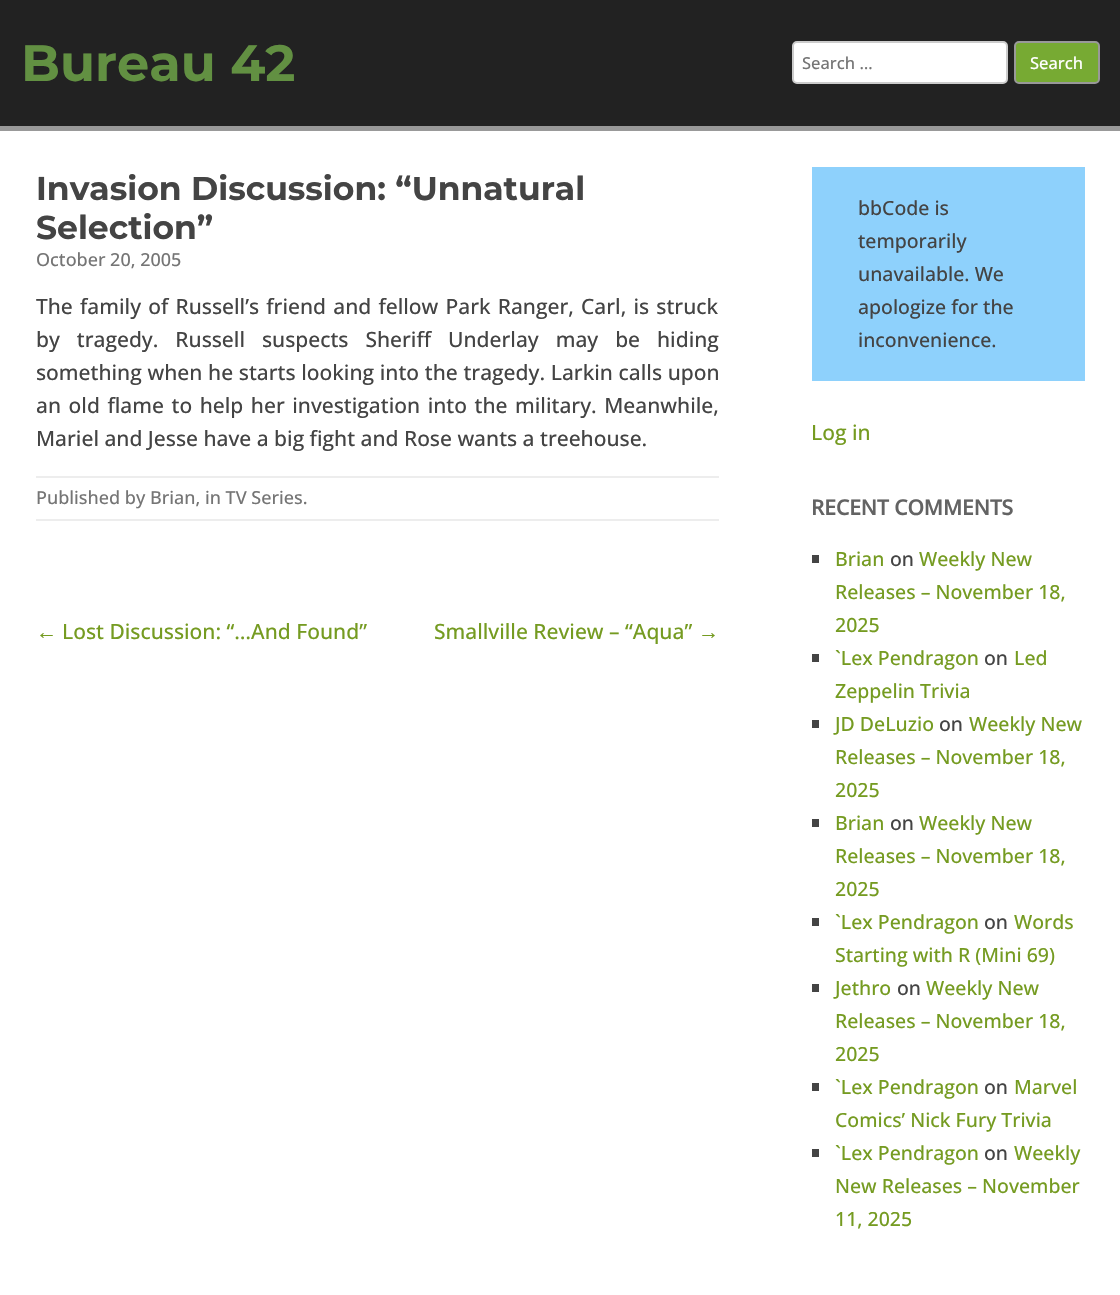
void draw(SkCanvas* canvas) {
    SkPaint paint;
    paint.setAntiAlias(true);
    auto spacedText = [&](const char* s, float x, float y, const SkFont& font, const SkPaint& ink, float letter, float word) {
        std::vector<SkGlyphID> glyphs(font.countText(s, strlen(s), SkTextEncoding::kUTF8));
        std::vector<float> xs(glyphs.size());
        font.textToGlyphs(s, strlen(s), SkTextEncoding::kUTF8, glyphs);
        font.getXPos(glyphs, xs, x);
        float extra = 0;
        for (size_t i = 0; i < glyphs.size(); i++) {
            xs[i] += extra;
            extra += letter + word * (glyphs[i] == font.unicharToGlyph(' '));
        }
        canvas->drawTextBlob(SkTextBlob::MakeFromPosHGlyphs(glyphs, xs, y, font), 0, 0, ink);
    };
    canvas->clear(0xFFFFFFFF);
    paint.setColor(0xFF222222);
    canvas->drawRect(SkRect::MakeXYWH(0, 0, 1120, 126), paint);
    paint.setColor(0xFF999999);
    canvas->drawRect(SkRect::MakeXYWH(0, 126, 1120, 5), paint);
    SkFont font1(fontMgr->matchFamilyStyle("Montserrat", SkFontStyle(100, SkFontStyle::kNormal_Width, SkFontStyle::kUpright_Slant)), 51);
    font1.setSubpixel(true);
    paint.setColor(0xFF629042);
    canvas->drawString("Bureau 42", 21, 81, font1, paint);
    paint.setColor(0xFFFFFFFF);
    canvas->drawRoundRect(SkRect::MakeXYWH(793, 42, 214, 41), 4, 4, paint);
    paint.setStyle(SkPaint::kStroke_Style);
    paint.setStrokeWidth(2);
    paint.setColor(0xFFCCCCCC);
    canvas->drawRoundRect(SkRect::MakeXYWH(793, 42, 214, 41), 4, 4, paint);
    SkFont font2(fontMgr->matchFamilyStyle("Open Sans", SkFontStyle(500, SkFontStyle::kNormal_Width, SkFontStyle::kUpright_Slant)), 16.5f);
    font2.setSubpixel(true);
    paint.setStyle(SkPaint::kFill_Style);
    paint.setColor(0xFF757575);
    canvas->drawString("Search …", 802, 69, font2, paint);
    paint.setColor(0xFF77AA33);
    canvas->drawRoundRect(SkRect::MakeXYWH(1015, 42, 84, 41), 4, 4, paint);
    paint.setStyle(SkPaint::kStroke_Style);
    paint.setColor(0xFF999999);
    canvas->drawRoundRect(SkRect::MakeXYWH(1015, 42, 84, 41), 4, 4, paint);
    paint.setStyle(SkPaint::kFill_Style);
    paint.setColor(0xFFFFFFFF);
    canvas->drawString("Search", 1030, 69, font2, paint);
    SkFont font3(fontMgr->matchFamilyStyle("Montserrat", SkFontStyle(100, SkFontStyle::kNormal_Width, SkFontStyle::kUpright_Slant)), 33);
    font3.setSubpixel(true);
    paint.setColor(0xFF444444);
    canvas->drawString("Invasion Discussion: “Unnatural", 36, 200, font3, paint);
    canvas->drawString("Selection”", 36, 239, font3, paint);
    SkFont font4(fontMgr->matchFamilyStyle("Open Sans", SkFontStyle(500, SkFontStyle::kNormal_Width, SkFontStyle::kUpright_Slant)), 18);
    font4.setSubpixel(true);
    paint.setColor(0xFF757575);
    canvas->drawString("October 20, 2005", 36, 266, font4, paint);
    SkFont font5(fontMgr->matchFamilyStyle("Open Sans", SkFontStyle(500, SkFontStyle::kNormal_Width, SkFontStyle::kUpright_Slant)), 21);
    font5.setSubpixel(true);
    paint.setColor(0xFF444444);
    spacedText("The family of Russell’s friend and fellow Park Ranger, Carl, is struck", 36, 314, font5, paint, 0, 1.75f);
    spacedText("by tragedy. Russell suspects Sheriff Underlay may be hiding", 36, 347, font5, paint, 0, 11.5f);
    spacedText("something when he starts looking into the tragedy. Larkin calls upon", 36, 380, font5, paint, 0, 0.25f);
    spacedText("an old flame to help her investigation into the military. Meanwhile,", 36, 413, font5, paint, 0, 2.1f);
    canvas->drawString("Mariel and Jesse have a big fight and Rose wants a treehouse.", 36, 446, font5, paint);
    paint.setColor(0xFFEDEDED);
    canvas->drawRect(SkRect::MakeXYWH(36, 476, 683, 2), paint);
    canvas->drawRect(SkRect::MakeXYWH(36, 519, 683, 2), paint);
    paint.setColor(0xFF757575);
    canvas->drawString("Published by Brian, in TV Series.", 36, 504, font4, paint);
    SkFont font6(fontMgr->matchFamilyStyle("Liberation Sans", SkFontStyle::Normal()), 21);
    font6.setSubpixel(true);
    paint.setColor(0xFF759B21);
    canvas->drawString("←", 36, 639, font6, paint);
    canvas->drawString("Lost Discussion: “…And Found”", 62, 639, font5, paint);
    canvas->drawString("Smallville Review – “Aqua”", 434, 639, font5, paint);
    canvas->drawString("→", 698, 639, font6, paint);
    paint.setColor(0xFF8ED1FC);
    canvas->drawRect(SkRect::MakeXYWH(812, 167, 273, 214), paint);
    SkFont font7(fontMgr->matchFamilyStyle("Open Sans", SkFontStyle(500, SkFontStyle::kNormal_Width, SkFontStyle::kUpright_Slant)), 19.5f);
    font7.setSubpixel(true);
    paint.setColor(0xFF444444);
    canvas->drawString("bbCode is", 858, 215, font7, paint);
    canvas->drawString("temporarily", 858, 248, font7, paint);
    canvas->drawString("unavailable. We", 858, 281, font7, paint);
    canvas->drawString("apologize for the", 858, 314, font7, paint);
    canvas->drawString("inconvenience.", 858, 347, font7, paint);
    paint.setColor(0xFF759B21);
    canvas->drawString("Log in", 811, 440, font5, paint);
    SkFont font8(fontMgr->matchFamilyStyle("Open Sans", SkFontStyle::Bold()), 21);
    font8.setSubpixel(true);
    paint.setColor(0xFF636363);
    canvas->drawString("RECENT COMMENTS", 811, 515, font8, paint);
    paint.setColor(0xFF444444);
    canvas->drawRect(SkRect::MakeXYWH(812, 555, 7, 8), paint);
    paint.setColor(0xFF759B21);
    canvas->drawString("Brian", 835, 566, font7, paint);
    paint.setColor(0xFF444444);
    canvas->drawString("on", 890, 566, font7, paint);
    paint.setColor(0xFF759B21);
    canvas->drawString("Weekly New", 919, 566, font7, paint);
    canvas->drawString("Releases – November 18,", 835, 599, font7, paint);
    canvas->drawString("2025", 835, 632, font7, paint);
    paint.setColor(0xFF444444);
    canvas->drawRect(SkRect::MakeXYWH(812, 654, 7, 8), paint);
    paint.setColor(0xFF759B21);
    canvas->drawString("`Lex Pendragon", 835, 665, font7, paint);
    paint.setColor(0xFF444444);
    canvas->drawString("on", 984, 665, font7, paint);
    paint.setColor(0xFF759B21);
    canvas->drawString("Led", 1014, 665, font7, paint);
    canvas->drawString("Zeppelin Trivia", 835, 698, font7, paint);
    paint.setColor(0xFF444444);
    canvas->drawRect(SkRect::MakeXYWH(812, 720, 7, 8), paint);
    paint.setColor(0xFF759B21);
    canvas->drawString("JD DeLuzio", 835, 731, font7, paint);
    paint.setColor(0xFF444444);
    canvas->drawString("on", 939, 731, font7, paint);
    paint.setColor(0xFF759B21);
    canvas->drawString("Weekly New", 969, 731, font7, paint);
    canvas->drawString("Releases – November 18,", 835, 764, font7, paint);
    canvas->drawString("2025", 835, 797, font7, paint);
    paint.setColor(0xFF444444);
    canvas->drawRect(SkRect::MakeXYWH(812, 819, 7, 8), paint);
    paint.setColor(0xFF759B21);
    canvas->drawString("Brian", 835, 830, font7, paint);
    paint.setColor(0xFF444444);
    canvas->drawString("on", 890, 830, font7, paint);
    paint.setColor(0xFF759B21);
    canvas->drawString("Weekly New", 919, 830, font7, paint);
    canvas->drawString("Releases – November 18,", 835, 863, font7, paint);
    canvas->drawString("2025", 835, 896, font7, paint);
    paint.setColor(0xFF444444);
    canvas->drawRect(SkRect::MakeXYWH(812, 918, 7, 8), paint);
    paint.setColor(0xFF759B21);
    canvas->drawString("`Lex Pendragon", 835, 929, font7, paint);
    paint.setColor(0xFF444444);
    canvas->drawString("on", 984, 929, font7, paint);
    paint.setColor(0xFF759B21);
    canvas->drawString("Words", 1014, 929, font7, paint);
    canvas->drawString("Starting with R (Mini 69)", 835, 962, font7, paint);
    paint.setColor(0xFF444444);
    canvas->drawRect(SkRect::MakeXYWH(812, 984, 7, 8), paint);
    paint.setColor(0xFF759B21);
    canvas->drawString("Jethro", 835, 995, font7, paint);
    paint.setColor(0xFF444444);
    canvas->drawString("on", 897, 995, font7, paint);
    paint.setColor(0xFF759B21);
    canvas->drawString("Weekly New", 926, 995, font7, paint);
    canvas->drawString("Releases – November 18,", 835, 1028, font7, paint);
    canvas->drawString("2025", 835, 1061, font7, paint);
    paint.setColor(0xFF444444);
    canvas->drawRect(SkRect::MakeXYWH(812, 1083, 7, 8), paint);
    paint.setColor(0xFF759B21);
    canvas->drawString("`Lex Pendragon", 835, 1094, font7, paint);
    paint.setColor(0xFF444444);
    canvas->drawString("on", 984, 1094, font7, paint);
    paint.setColor(0xFF759B21);
    canvas->drawString("Marvel", 1014, 1094, font7, paint);
    canvas->drawString("Comics’ Nick Fury Trivia", 835, 1127, font7, paint);
    paint.setColor(0xFF444444);
    canvas->drawRect(SkRect::MakeXYWH(812, 1149, 7, 8), paint);
    paint.setColor(0xFF759B21);
    canvas->drawString("`Lex Pendragon", 835, 1160, font7, paint);
    paint.setColor(0xFF444444);
    canvas->drawString("on", 984, 1160, font7, paint);
    paint.setColor(0xFF759B21);
    canvas->drawString("Weekly", 1014, 1160, font7, paint);
    canvas->drawString("New Releases – November", 835, 1193, font7, paint);
    canvas->drawString("11, 2025", 835, 1226, font7, paint);
}
